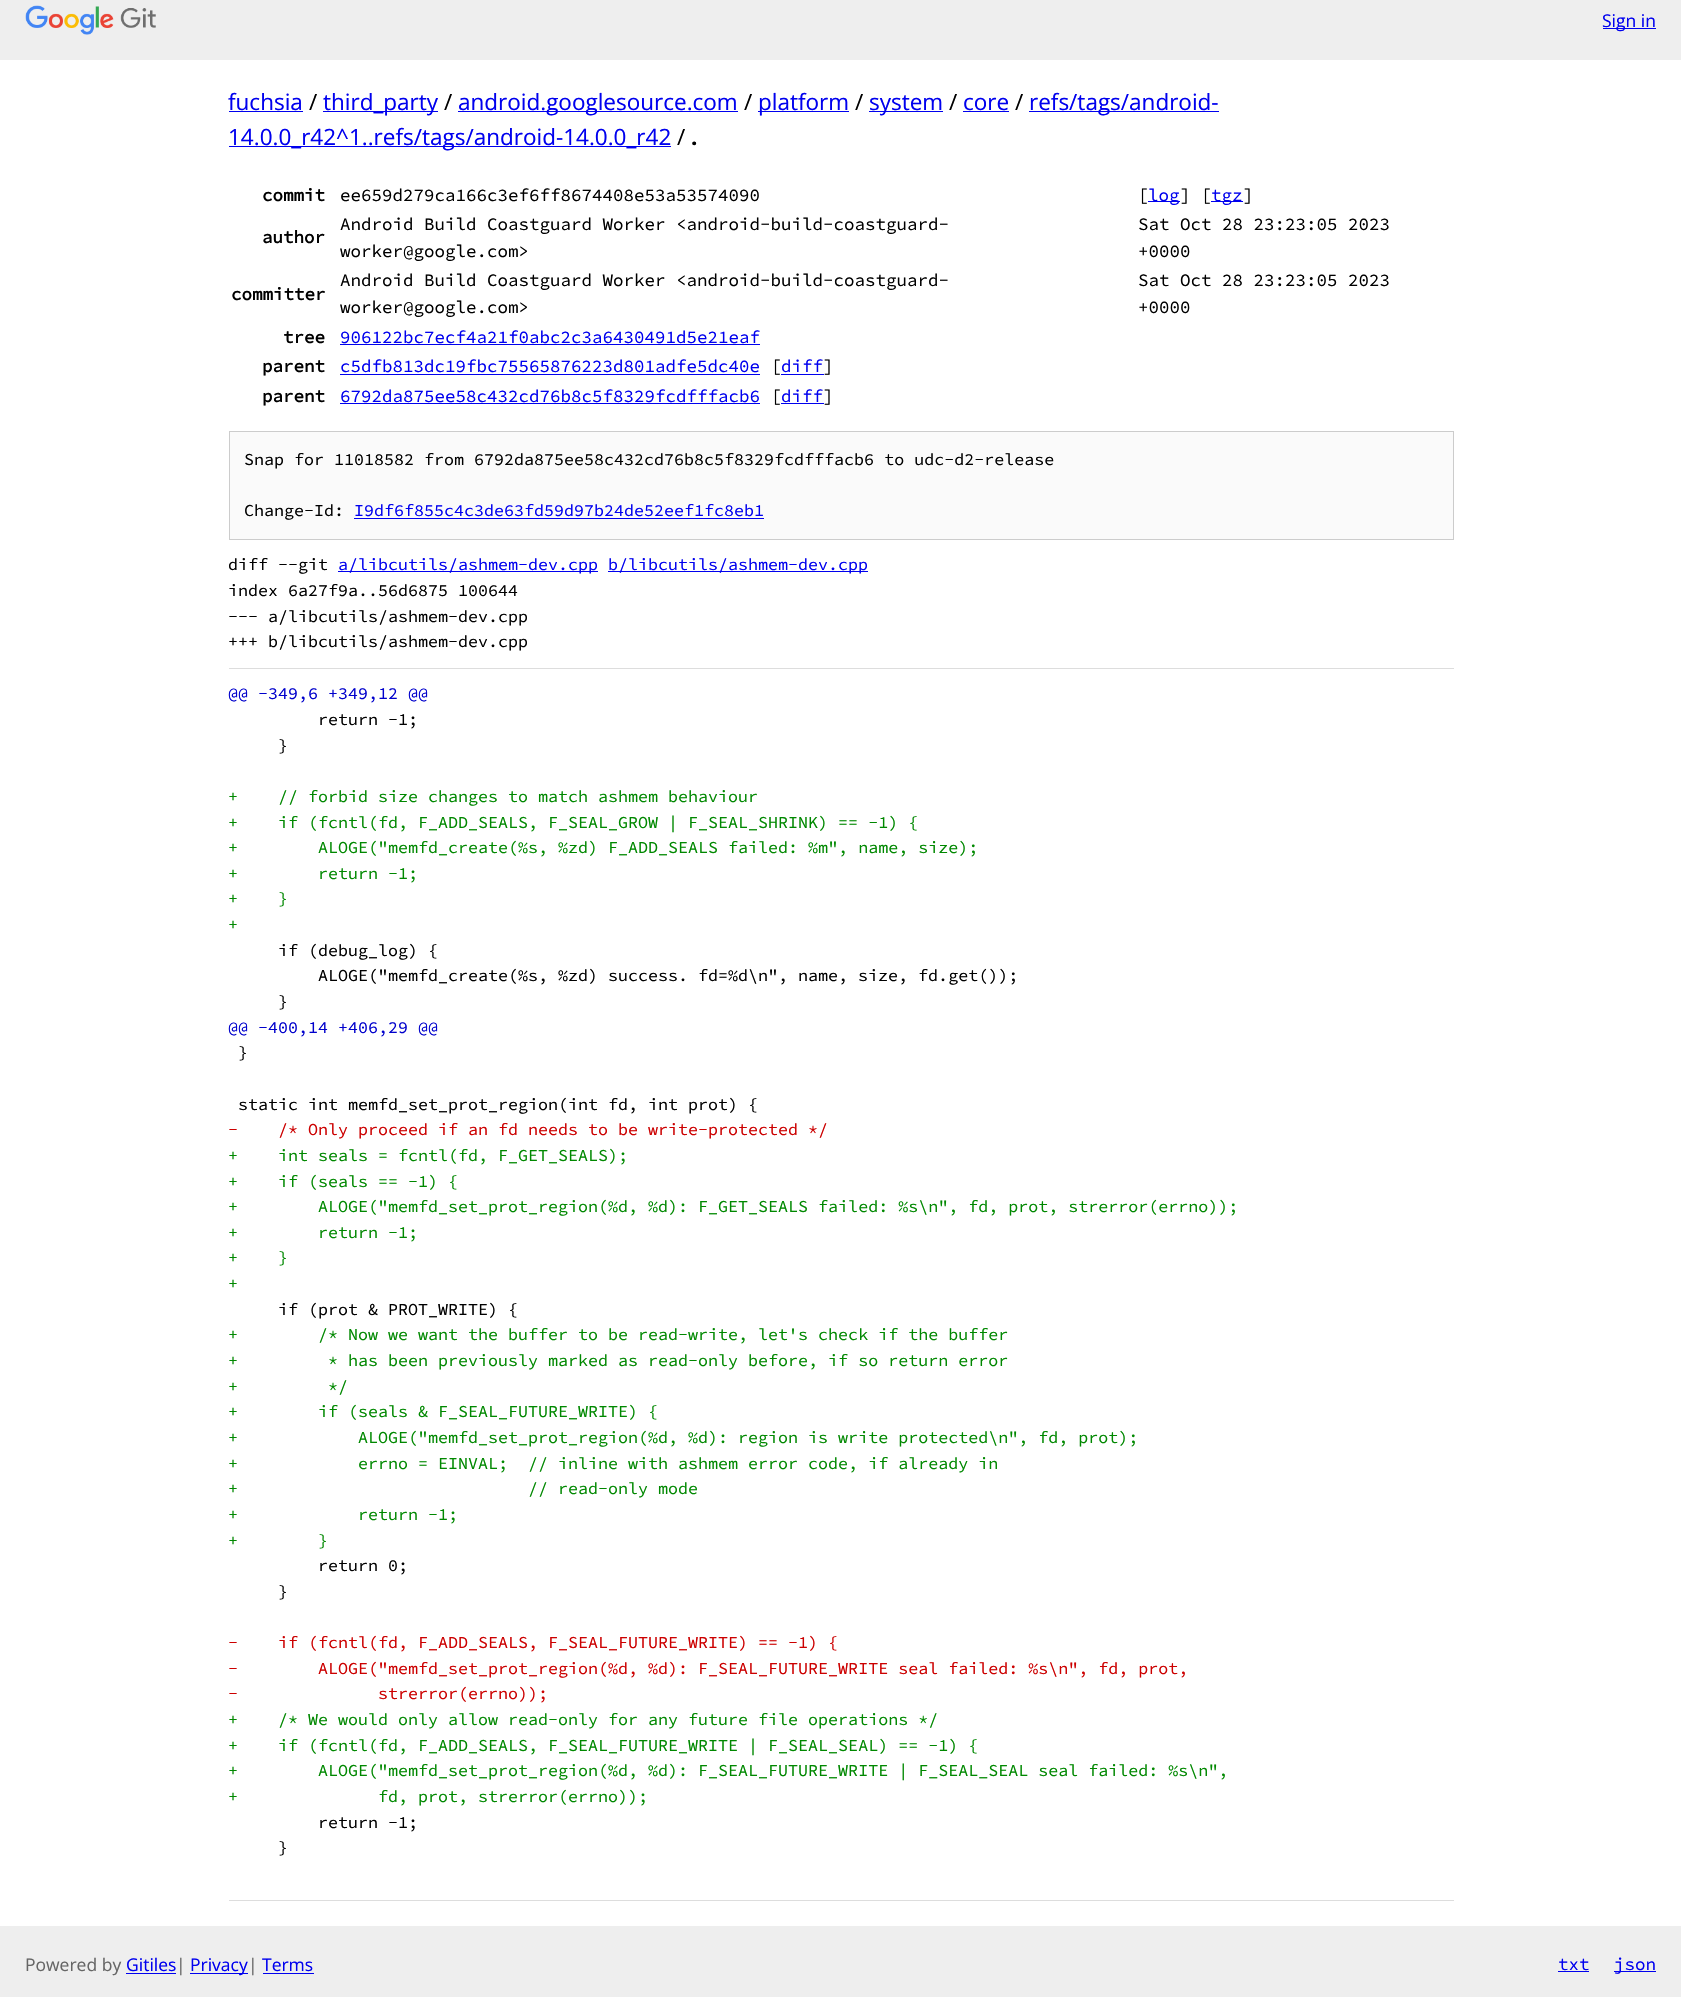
void draw(SkCanvas* canvas) {
    SkPaint paint;
    paint.setAntiAlias(true);
    canvas->clear(0xFFFFFFFF);
    paint.setColor(0xFFEEEEEE);
    canvas->drawRect(SkRect::MakeXYWH(0, 0, 1681, 60), paint);
    canvas->drawImageRect(SkImages::DeferredFromEncodedData(SkData::MakeFromFileName("img1.png")), SkRect::MakeXYWH(25, 5, 131, 30), SkSamplingOptions());
    paint.setColor(0xFF0000EE);
    canvas->drawRect(SkRect::MakeXYWH(1603, 28, 53, 1), paint);
    SkFont font1(fontMgr->matchFamilyStyle("Open Sans", SkFontStyle::Normal()), 17.5f);
    font1.setSubpixel(true);
    canvas->drawString("Sign in", 1602, 27, font1, paint);
    SkFont font2(fontMgr->matchFamilyStyle("Open Sans", SkFontStyle::Normal()), 22.5f);
    font2.setSubpixel(true);
    canvas->drawString("fuchsia", 228, 110, font2, paint);
    canvas->drawRect(SkRect::MakeXYWH(229, 111, 74, 1), paint);
    paint.setColor(0xFF000000);
    canvas->drawString("/", 309, 110, font2, paint);
    paint.setColor(0xFF0000EE);
    canvas->drawRect(SkRect::MakeXYWH(323, 111, 115, 1), paint);
    canvas->drawString("third_party", 323, 110, font2, paint);
    paint.setColor(0xFF000000);
    canvas->drawString("/", 444, 110, font2, paint);
    paint.setColor(0xFF0000EE);
    canvas->drawRect(SkRect::MakeXYWH(458, 111, 280, 1), paint);
    canvas->drawString("android.googlesource.com", 458, 110, font2, paint);
    paint.setColor(0xFF000000);
    canvas->drawString("/", 744, 110, font2, paint);
    paint.setColor(0xFF0000EE);
    canvas->drawRect(SkRect::MakeXYWH(758, 111, 91, 1), paint);
    canvas->drawString("platform", 758, 110, font2, paint);
    paint.setColor(0xFF000000);
    canvas->drawString("/", 855, 110, font2, paint);
    paint.setColor(0xFF0000EE);
    canvas->drawRect(SkRect::MakeXYWH(869, 111, 74, 1), paint);
    canvas->drawString("system", 869, 110, font2, paint);
    paint.setColor(0xFF000000);
    canvas->drawString("/", 949, 110, font2, paint);
    paint.setColor(0xFF0000EE);
    canvas->drawString("core", 963, 110, font2, paint);
    canvas->drawRect(SkRect::MakeXYWH(963, 111, 46, 1), paint);
    paint.setColor(0xFF000000);
    canvas->drawString("/", 1015, 110, font2, paint);
    paint.setColor(0xFF0000EE);
    canvas->drawRect(SkRect::MakeXYWH(1029, 111, 190, 1), paint);
    canvas->drawString("refs/tags/android-", 1029, 110, font2, paint);
    canvas->drawRect(SkRect::MakeXYWH(229, 146, 442, 1), paint);
    canvas->drawString("14.0.0_r42^1..refs/tags/android-14.0.0_r42", 228, 145, font2, paint);
    paint.setColor(0xFF000000);
    canvas->drawString("/", 677, 145, font2, paint);
    SkFont font3(fontMgr->matchFamilyStyle("Open Sans", SkFontStyle::Bold()), 22.5f);
    font3.setSubpixel(true);
    canvas->drawString(".", 691, 145, font3, paint);
    SkFont font4(fontMgr->matchFamilyStyle("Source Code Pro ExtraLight", SkFontStyle::Bold()), 17.5f);
    font4.setSubpixel(true);
    canvas->drawString("commit", 262, 201, font4, paint);
    SkFont font5(fontMgr->matchFamilyStyle("Source Code Pro ExtraLight", SkFontStyle(200, SkFontStyle::kNormal_Width, SkFontStyle::kUpright_Slant)), 17.5f);
    font5.setSubpixel(true);
    canvas->drawString("ee659d279ca166c3ef6ff8674408e53a53574090", 340, 201, font5, paint);
    canvas->drawString("[", 1138, 201, font5, paint);
    paint.setColor(0xFF0000EE);
    canvas->drawRect(SkRect::MakeXYWH(1148, 201, 32, 1), paint);
    canvas->drawString("log", 1148, 201, font5, paint);
    paint.setColor(0xFF000000);
    canvas->drawString("] [", 1180, 201, font5, paint);
    paint.setColor(0xFF0000EE);
    canvas->drawRect(SkRect::MakeXYWH(1211, 201, 32, 1), paint);
    canvas->drawString("tgz", 1211, 201, font5, paint);
    paint.setColor(0xFF000000);
    canvas->drawString("]", 1243, 201, font5, paint);
    canvas->drawString("author", 262, 243, font4, paint);
    canvas->drawString("Android Build Coastguard Worker <android-build-coastguard-", 340, 230, font5, paint);
    canvas->drawString("worker@google.com>", 340, 257, font5, paint);
    canvas->drawString("Sat Oct 28 23:23:05 2023", 1138, 230, font5, paint);
    canvas->drawString("+0000", 1138, 257, font5, paint);
    canvas->drawString("committer", 231, 300, font4, paint);
    canvas->drawString("Android Build Coastguard Worker <android-build-coastguard-", 340, 286, font5, paint);
    canvas->drawString("worker@google.com>", 340, 313, font5, paint);
    canvas->drawString("Sat Oct 28 23:23:05 2023", 1138, 286, font5, paint);
    canvas->drawString("+0000", 1138, 313, font5, paint);
    canvas->drawString("tree", 283, 343, font4, paint);
    paint.setColor(0xFF0000EE);
    canvas->drawString("906122bc7ecf4a21f0abc2c3a6430491d5e21eaf", 340, 343, font5, paint);
    canvas->drawRect(SkRect::MakeXYWH(340, 344, 420, 1), paint);
    paint.setColor(0xFF000000);
    canvas->drawString("parent", 262, 372, font4, paint);
    paint.setColor(0xFF0000EE);
    canvas->drawString("c5dfb813dc19fbc75565876223d801adfe5dc40e", 340, 372, font5, paint);
    canvas->drawRect(SkRect::MakeXYWH(340, 374, 420, 1), paint);
    paint.setColor(0xFF000000);
    canvas->drawString("[", 771, 372, font5, paint);
    paint.setColor(0xFF0000EE);
    canvas->drawString("diff", 781, 372, font5, paint);
    paint.setColor(0xFF000000);
    canvas->drawString("]", 823, 372, font5, paint);
    paint.setColor(0xFF0000EE);
    canvas->drawRect(SkRect::MakeXYWH(781, 374, 43, 1), paint);
    paint.setColor(0xFF000000);
    canvas->drawString("parent", 262, 402, font4, paint);
    paint.setColor(0xFF0000EE);
    canvas->drawString("6792da875ee58c432cd76b8c5f8329fcdfffacb6", 340, 402, font5, paint);
    canvas->drawRect(SkRect::MakeXYWH(340, 403, 420, 1), paint);
    paint.setColor(0xFF000000);
    canvas->drawString("[", 771, 402, font5, paint);
    paint.setColor(0xFF0000EE);
    canvas->drawString("diff", 781, 402, font5, paint);
    paint.setColor(0xFF000000);
    canvas->drawString("]", 823, 402, font5, paint);
    paint.setColor(0xFF0000EE);
    canvas->drawRect(SkRect::MakeXYWH(781, 403, 43, 1), paint);
    paint.setColor(0xFFFAFAFA);
    canvas->drawRect(SkRect::MakeXYWH(229.5f, 431.5f, 1224, 108), paint);
    paint.setStyle(SkPaint::kStroke_Style);
    paint.setStrokeWidth(1);
    paint.setColor(0xFFCCCCCC);
    canvas->drawRect(SkRect::MakeXYWH(229.5f, 431.5f, 1224, 108), paint);
    SkFont font6(fontMgr->matchFamilyStyle("Source Code Pro ExtraLight", SkFontStyle(200, SkFontStyle::kNormal_Width, SkFontStyle::kUpright_Slant)), 16.67f);
    font6.setSubpixel(true);
    paint.setStyle(SkPaint::kFill_Style);
    paint.setColor(0xFF000000);
    canvas->drawString("Snap for 11018582 from 6792da875ee58c432cd76b8c5f8329fcdfffacb6 to udc-d2-release", 244, 465, font6, paint);
    canvas->drawString("Change-Id:", 244, 516, font6, paint);
    paint.setColor(0xFF0000EE);
    canvas->drawString("I9df6f855c4c3de63fd59d97b24de52eef1fc8eb1", 354, 516, font6, paint);
    canvas->drawRect(SkRect::MakeXYWH(354, 518, 410, 1), paint);
    paint.setColor(0xFF000000);
    canvas->drawString("diff --git", 228, 570, font6, paint);
    paint.setColor(0xFF0000EE);
    canvas->drawRect(SkRect::MakeXYWH(338, 571, 260, 1), paint);
    canvas->drawString("a/libcutils/ashmem-dev.cpp", 338, 570, font6, paint);
    canvas->drawRect(SkRect::MakeXYWH(608, 571, 260, 1), paint);
    canvas->drawString("b/libcutils/ashmem-dev.cpp", 608, 570, font6, paint);
    paint.setColor(0xFF000000);
    canvas->drawString("index 6a27f9a..56d6875 100644", 228, 596, font6, paint);
    canvas->drawString("--- a/libcutils/ashmem-dev.cpp", 228, 622, font6, paint);
    canvas->drawString("+++ b/libcutils/ashmem-dev.cpp", 228, 647, font6, paint);
    paint.setColor(0xFFDDDDDD);
    canvas->drawRect(SkRect::MakeXYWH(229, 668, 1225, 1), paint);
    canvas->drawRect(SkRect::MakeXYWH(229, 1900, 1225, 1), paint);
    paint.setColor(0xFF0000CC);
    canvas->drawString("@@ -349,6 +349,12 @@", 228, 699, font6, paint);
    paint.setColor(0xFF000000);
    canvas->drawString("return -1;", 318, 725, font6, paint);
    canvas->drawString("}", 278, 751, font6, paint);
    paint.setColor(0xFF008800);
    canvas->drawString("+    // forbid size changes to match ashmem behaviour", 228, 802, font6, paint);
    canvas->drawString("+    if (fcntl(fd, F_ADD_SEALS, F_SEAL_GROW | F_SEAL_SHRINK) == -1) {", 228, 828, font6, paint);
    canvas->drawString("+        ALOGE(\"memfd_create(%s, %zd) F_ADD_SEALS failed: %m\", name, size);", 228, 853, font6, paint);
    canvas->drawString("+        return -1;", 228, 879, font6, paint);
    canvas->drawString("+    }", 228, 904, font6, paint);
    canvas->drawString("+", 228, 930, font6, paint);
    paint.setColor(0xFF000000);
    canvas->drawString("if (debug_log) {", 278, 956, font6, paint);
    canvas->drawString("ALOGE(\"memfd_create(%s, %zd) success. fd=%d\\n\", name, size, fd.get());", 318, 981, font6, paint);
    canvas->drawString("}", 278, 1007, font6, paint);
    paint.setColor(0xFF0000CC);
    canvas->drawString("@@ -400,14 +406,29 @@", 228, 1033, font6, paint);
    paint.setColor(0xFF000000);
    canvas->drawString("}", 238, 1058, font6, paint);
    canvas->drawString("static int memfd_set_prot_region(int fd, int prot) {", 238, 1110, font6, paint);
    paint.setColor(0xFFCC0000);
    canvas->drawString("-    /* Only proceed if an fd needs to be write-protected */", 228, 1135, font6, paint);
    paint.setColor(0xFF008800);
    canvas->drawString("+    int seals = fcntl(fd, F_GET_SEALS);", 228, 1161, font6, paint);
    canvas->drawString("+    if (seals == -1) {", 228, 1187, font6, paint);
    canvas->drawString("+        ALOGE(\"memfd_set_prot_region(%d, %d): F_GET_SEALS failed: %s\\n\", fd, prot, strerror(errno));", 228, 1212, font6, paint);
    canvas->drawString("+        return -1;", 228, 1238, font6, paint);
    canvas->drawString("+    }", 228, 1263, font6, paint);
    canvas->drawString("+", 228, 1289, font6, paint);
    paint.setColor(0xFF000000);
    canvas->drawString("if (prot & PROT_WRITE) {", 278, 1315, font6, paint);
    paint.setColor(0xFF008800);
    canvas->drawString("+        /* Now we want the buffer to be read-write, let's check if the buffer", 228, 1340, font6, paint);
    canvas->drawString("+         * has been previously marked as read-only before, if so return error", 228, 1366, font6, paint);
    canvas->drawString("+         */", 228, 1392, font6, paint);
    canvas->drawString("+        if (seals & F_SEAL_FUTURE_WRITE) {", 228, 1417, font6, paint);
    canvas->drawString("+            ALOGE(\"memfd_set_prot_region(%d, %d): region is write protected\\n\", fd, prot);", 228, 1443, font6, paint);
    canvas->drawString("+            errno = EINVAL;  // inline with ashmem error code, if already in", 228, 1469, font6, paint);
    canvas->drawString("+                             // read-only mode", 228, 1494, font6, paint);
    canvas->drawString("+            return -1;", 228, 1520, font6, paint);
    canvas->drawString("+        }", 228, 1546, font6, paint);
    paint.setColor(0xFF000000);
    canvas->drawString("return 0;", 318, 1571, font6, paint);
    canvas->drawString("}", 278, 1597, font6, paint);
    paint.setColor(0xFFCC0000);
    canvas->drawString("-    if (fcntl(fd, F_ADD_SEALS, F_SEAL_FUTURE_WRITE) == -1) {", 228, 1648, font6, paint);
    canvas->drawString("-        ALOGE(\"memfd_set_prot_region(%d, %d): F_SEAL_FUTURE_WRITE seal failed: %s\\n\", fd, prot,", 228, 1674, font6, paint);
    canvas->drawString("-              strerror(errno));", 228, 1699, font6, paint);
    paint.setColor(0xFF008800);
    canvas->drawString("+    /* We would only allow read-only for any future file operations */", 228, 1725, font6, paint);
    canvas->drawString("+    if (fcntl(fd, F_ADD_SEALS, F_SEAL_FUTURE_WRITE | F_SEAL_SEAL) == -1) {", 228, 1751, font6, paint);
    canvas->drawString("+        ALOGE(\"memfd_set_prot_region(%d, %d): F_SEAL_FUTURE_WRITE | F_SEAL_SEAL seal failed: %s\\n\",", 228, 1776, font6, paint);
    canvas->drawString("+              fd, prot, strerror(errno));", 228, 1802, font6, paint);
    paint.setColor(0xFF000000);
    canvas->drawString("return -1;", 318, 1828, font6, paint);
    canvas->drawString("}", 278, 1853, font6, paint);
    paint.setColor(0xFFEEEEEE);
    canvas->drawRect(SkRect::MakeXYWH(0, 1926, 1681, 71), paint);
    paint.setColor(0xFF666666);
    canvas->drawString("Powered by", 25, 1971, font1, paint);
    paint.setColor(0xFF0000EE);
    canvas->drawString("Gitiles", 126, 1971, font1, paint);
    canvas->drawRect(SkRect::MakeXYWH(126, 1973, 50, 1), paint);
    paint.setColor(0xFF666666);
    canvas->drawString("|", 176, 1971, font1, paint);
    paint.setColor(0xFF0000EE);
    canvas->drawRect(SkRect::MakeXYWH(190, 1973, 58, 1), paint);
    canvas->drawString("Privacy", 190, 1971, font1, paint);
    paint.setColor(0xFF666666);
    canvas->drawString("|", 248, 1971, font1, paint);
    paint.setColor(0xFF0000EE);
    canvas->drawString("Terms", 262, 1971, font1, paint);
    canvas->drawRect(SkRect::MakeXYWH(263, 1973, 51, 1), paint);
    canvas->drawString("txt", 1558, 1970, font5, paint);
    canvas->drawRect(SkRect::MakeXYWH(1558, 1971, 31, 1), paint);
    canvas->drawRect(SkRect::MakeXYWH(1614, 1971, 42, 1), paint);
    canvas->drawString("json", 1614, 1970, font5, paint);
}
